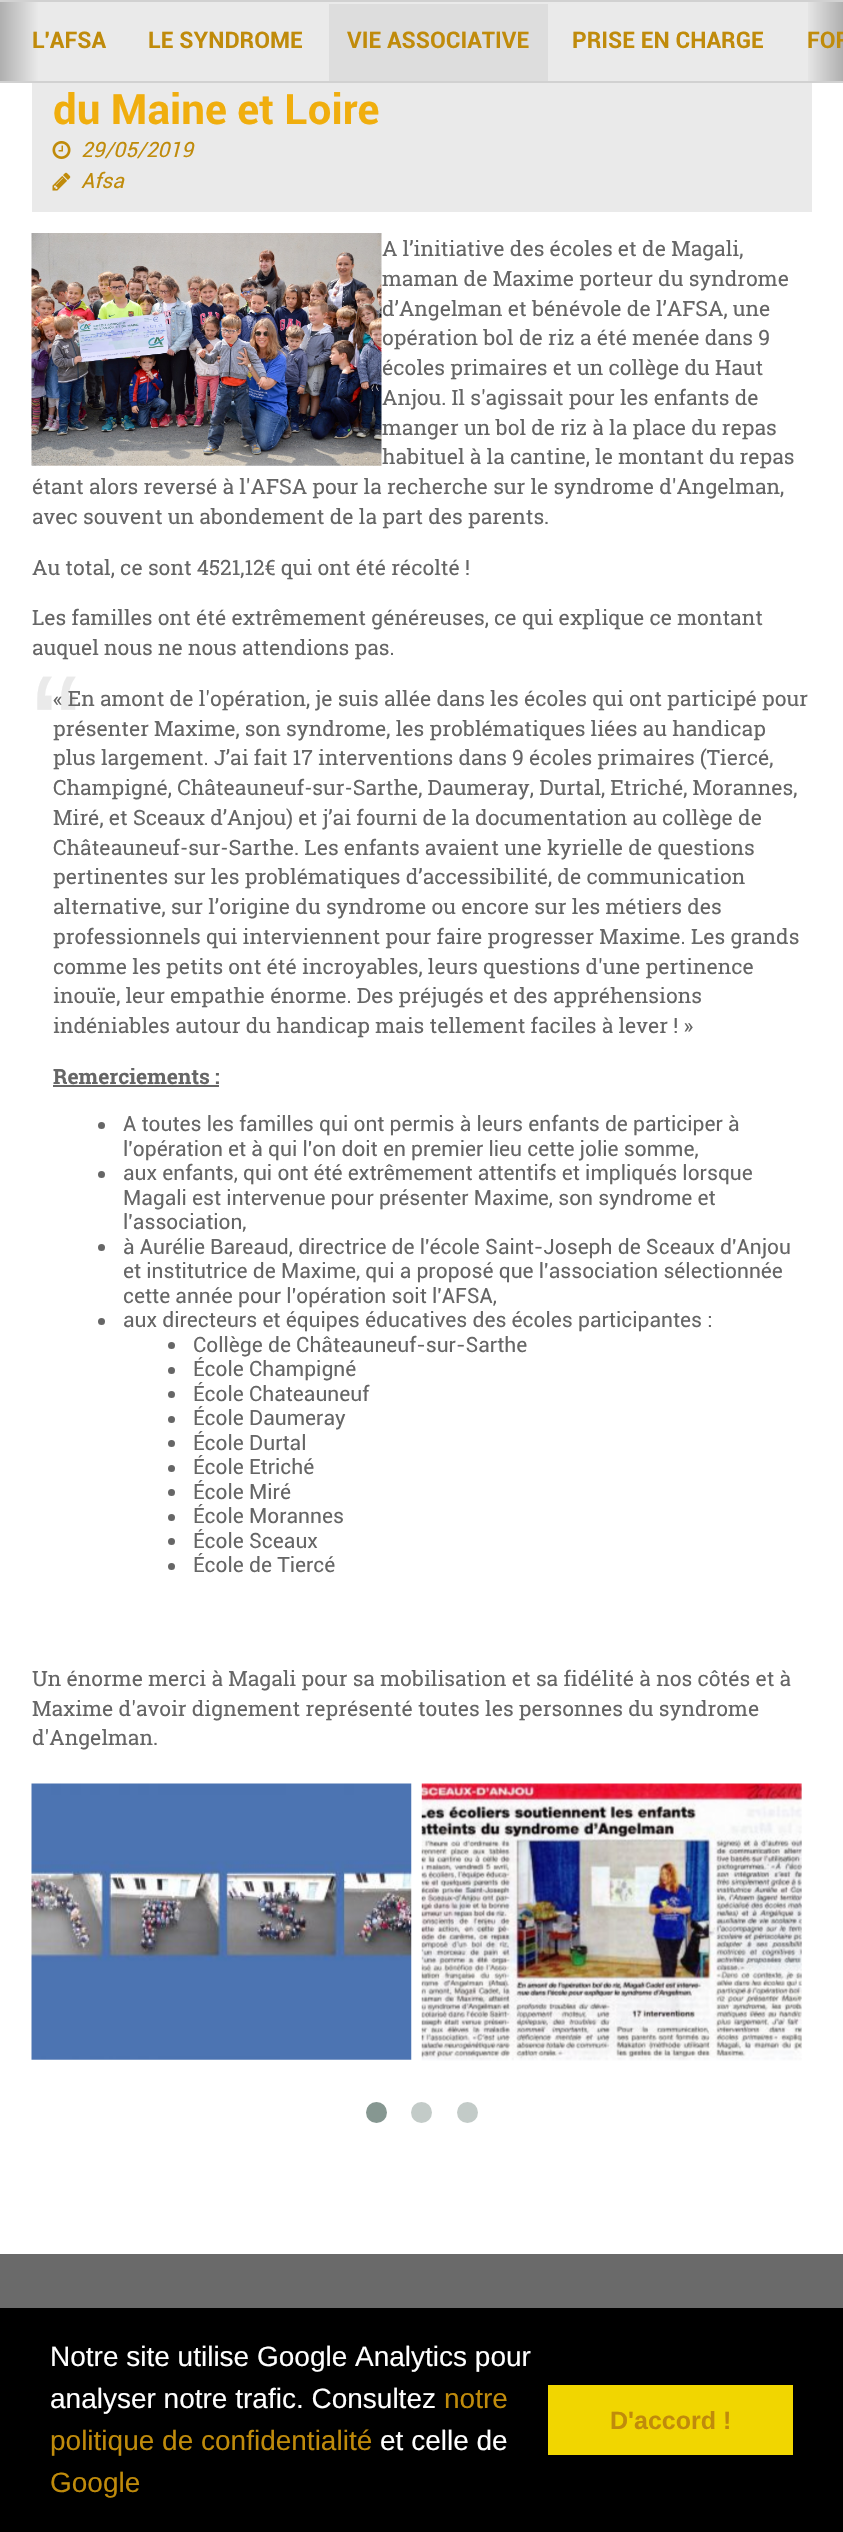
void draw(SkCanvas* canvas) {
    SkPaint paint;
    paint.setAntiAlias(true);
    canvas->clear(0xFFFFFFFF);
    paint.setColor(0xFFEAEAEA);
    canvas->drawRect(SkRect::MakeXYWH(65, 2, 778, 79), paint);
    paint.setColor(0xFFD1D1D1);
    canvas->drawRect(SkRect::MakeXYWH(0, 0, 843, 2), paint);
    canvas->drawRect(SkRect::MakeXYWH(0, 81, 843, 2), paint);
    {
        const SkColor colors[] = {0xFF8C8C8C, 0xFFEAEAEA};
        const float stops[] = {0, 0.7f};
        const SkPoint ends[] = {{-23, 41}, {65, 41}};
        paint.setShader(SkGradientShader::MakeLinear(ends, colors, stops, 2, SkTileMode::kClamp));
        paint.setAlpha(255);
    }
    canvas->drawRect(SkRect::MakeXYWH(0, 2, 65, 79), paint);
    {
        const SkColor colors[] = {0x66000000, 0x00000000};
        const float stops[] = {0, 0.7f};
        const SkPoint ends[] = {{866, 41}, {779, 41}};
        paint.setShader(SkGradientShader::MakeLinear(ends, colors, stops, 2, SkTileMode::kClamp));
        paint.setAlpha(255);
    }
    canvas->drawRect(SkRect::MakeXYWH(808, 2, 35, 79), paint);
    SkFont font1(fontMgr->matchFamilyStyle("Roboto", SkFontStyle::Bold()), 23);
    font1.setSubpixel(true);
    paint.setShader(nullptr);
    paint.setColor(0xFFC08B0B);
    canvas->drawString("L'AFSA", 32, 48, font1, paint);
    canvas->drawString("LE SYNDROME", 148, 48, font1, paint);
    paint.setColor(0xFFDDDDDD);
    canvas->drawRect(SkRect::MakeXYWH(329, 4, 219, 77), paint);
    paint.setColor(0xFFC08B0B);
    canvas->drawString("VIE ASSOCIATIVE", 347, 48, font1, paint);
    canvas->drawString("PRISE EN CHARGE", 572, 48, font1, paint);
    canvas->drawString("FOR", 807, 48, font1, paint);
    paint.setColor(0xFFEAEAEA);
    canvas->drawRect(SkRect::MakeXYWH(32, 83, 780, 129), paint);
    SkFont font2(fontMgr->matchFamilyStyle("Roboto", SkFontStyle::Bold()), 42);
    font2.setSubpixel(true);
    paint.setColor(0xFFF0AE0E);
    canvas->drawString("du Maine et Loire", 53, 124, font2, paint);
    canvas->drawImageRect(SkImages::DeferredFromEncodedData(SkData::MakeFromFileName("img1.png")), SkRect::MakeXYWH(52, 141, 19, 18), SkSamplingOptions());
    SkFont font3(fontMgr->matchFamilyStyle("Roboto", SkFontStyle::Italic()), 21);
    font3.setSubpixel(true);
    paint.setColor(0xFFC08B0B);
    canvas->drawString("29/05/2019", 81, 157, font3, paint);
    canvas->drawImageRect(SkImages::DeferredFromEncodedData(SkData::MakeFromFileName("img2.png")), SkRect::MakeXYWH(52, 172, 19, 19), SkSamplingOptions());
    canvas->drawString("Afsa", 81, 188, font3, paint);
    canvas->drawImageRect(SkImages::DeferredFromEncodedData(SkData::MakeFromFileName("img3.png")), SkRect::MakeXYWH(31, 233, 351, 233), SkSamplingOptions());
    SkFont font4(fontMgr->matchFamilyStyle("Roboto Slab", SkFontStyle::Normal()), 21);
    font4.setSubpixel(true);
    paint.setColor(0xFF666666);
    canvas->drawString("A l’initiative des écoles et de Magali,", 382, 256, font4, paint);
    canvas->drawString("maman de Maxime porteur du syndrome", 382, 286, font4, paint);
    canvas->drawString("d’Angelman et bénévole de l’AFSA, une", 382, 316, font4, paint);
    canvas->drawString("opération bol de riz a été menée dans 9", 382, 345, font4, paint);
    canvas->drawString("écoles primaires et un collège du Haut", 382, 375, font4, paint);
    canvas->drawString("Anjou. Il s'agissait pour les enfants de", 382, 405, font4, paint);
    canvas->drawString("manger un bol de riz à la place du repas", 382, 435, font4, paint);
    canvas->drawString("habituel à la cantine, le montant du repas", 382, 464, font4, paint);
    canvas->drawString("étant alors reversé à l'AFSA pour la recherche sur le syndrome d'Angelman,", 32, 494, font4, paint);
    canvas->drawString("avec souvent un abondement de la part des parents.", 32, 524, font4, paint);
    canvas->drawString("Au total, ce sont 4521,12€ qui ont été récolté !", 32, 575, font4, paint);
    canvas->drawString("Les familles ont été extrêmement généreuses, ce qui explique ce montant", 32, 625, font4, paint);
    canvas->drawString("auquel nous ne nous attendions pas.", 32, 655, font4, paint);
    SkFont font5(fontMgr->matchFamilyStyle("Liberation Sans", SkFontStyle::Normal()), 147);
    font5.setSubpixel(true);
    paint.setColor(0xFFEAEAEA);
    canvas->drawString("“", 32, 778, font5, paint);
    paint.setColor(0xFF666666);
    canvas->drawString("« En amont de l'opération, je suis allée dans les écoles qui ont participé pour", 53, 706, font4, paint);
    canvas->drawString("présenter Maxime, son syndrome, les problématiques liées au handicap", 53, 736, font4, paint);
    canvas->drawString("plus largement. J’ai fait 17 interventions dans 9 écoles primaires (Tiercé,", 53, 765, font4, paint);
    canvas->drawString("Champigné, Châteauneuf-sur-Sarthe, Daumeray, Durtal, Etriché, Morannes,", 53, 795, font4, paint);
    canvas->drawString("Miré, et Sceaux d’Anjou) et j’ai fourni de la documentation au collège de", 53, 825, font4, paint);
    canvas->drawString("Châteauneuf-sur-Sarthe. Les enfants avaient une kyrielle de questions", 53, 855, font4, paint);
    canvas->drawString("pertinentes sur les problématiques d’accessibilité, de communication", 53, 884, font4, paint);
    canvas->drawString("alternative, sur l’origine du syndrome ou encore sur les métiers des", 53, 914, font4, paint);
    canvas->drawString("professionnels qui interviennent pour faire progresser Maxime. Les grands", 53, 944, font4, paint);
    canvas->drawString("comme les petits ont été incroyables, leurs questions d'une pertinence", 53, 974, font4, paint);
    canvas->drawString("inouïe, leur empathie énorme. Des préjugés et des appréhensions", 53, 1003, font4, paint);
    canvas->drawString("indéniables autour du handicap mais tellement faciles à lever ! »", 53, 1033, font4, paint);
    SkFont font6(fontMgr->matchFamilyStyle("Roboto Slab", SkFontStyle::Bold()), 21);
    font6.setSubpixel(true);
    canvas->drawString("Remerciements :", 53, 1084, font6, paint);
    canvas->drawRect(SkRect::MakeXYWH(53, 1085, 166, 2), paint);
    canvas->drawCircle(101.5f, 1125.5f, 3.5f, paint);
    SkFont font7(fontMgr->matchFamilyStyle("Roboto", SkFontStyle::Normal()), 21);
    font7.setSubpixel(true);
    canvas->drawString("A toutes les familles qui ont permis à leurs enfants de participer à", 123, 1131, font7, paint);
    canvas->drawString("l'opération et à qui l'on doit en premier lieu cette jolie somme,", 123, 1156, font7, paint);
    canvas->drawCircle(101.5f, 1174.5f, 3.5f, paint);
    canvas->drawString("aux enfants, qui ont été extrêmement attentifs et impliqués lorsque", 123, 1180, font7, paint);
    canvas->drawString("Magali est intervenue pour présenter Maxime, son syndrome et", 123, 1205, font7, paint);
    canvas->drawString("l'association,", 123, 1229, font7, paint);
    canvas->drawCircle(101.5f, 1247.5f, 3.5f, paint);
    canvas->drawString("à Aurélie Bareaud, directrice de l'école Saint-Joseph de Sceaux d'Anjou", 123, 1254, font7, paint);
    canvas->drawString("et institutrice de Maxime, qui a proposé que l'association sélectionnée", 123, 1278, font7, paint);
    canvas->drawString("cette année pour l'opération soit l'AFSA,", 123, 1303, font7, paint);
    canvas->drawCircle(101.5f, 1321.5f, 3.5f, paint);
    canvas->drawString("aux directeurs et équipes éducatives des écoles participantes :", 123, 1327, font7, paint);
    canvas->drawCircle(171.5f, 1345.5f, 3.5f, paint);
    canvas->drawString("Collège de Châteauneuf-sur-Sarthe", 193, 1352, font7, paint);
    canvas->drawCircle(171.5f, 1370.5f, 3.5f, paint);
    canvas->drawString("École Champigné", 193, 1376, font7, paint);
    canvas->drawCircle(171.5f, 1394.5f, 3.5f, paint);
    canvas->drawString("École Chateauneuf", 193, 1401, font7, paint);
    canvas->drawCircle(171.5f, 1419.5f, 3.5f, paint);
    canvas->drawString("École Daumeray", 193, 1425, font7, paint);
    canvas->drawCircle(171.5f, 1443.5f, 3.5f, paint);
    canvas->drawString("École Durtal", 193, 1450, font7, paint);
    canvas->drawCircle(171.5f, 1468.5f, 3.5f, paint);
    canvas->drawString("École Etriché", 193, 1474, font7, paint);
    canvas->drawCircle(171.5f, 1492.5f, 3.5f, paint);
    canvas->drawString("École Miré", 193, 1499, font7, paint);
    canvas->drawCircle(171.5f, 1517.5f, 3.5f, paint);
    canvas->drawString("École Morannes", 193, 1523, font7, paint);
    canvas->drawCircle(171.5f, 1541.5f, 3.5f, paint);
    canvas->drawString("École Sceaux", 193, 1548, font7, paint);
    canvas->drawCircle(171.5f, 1566.5f, 3.5f, paint);
    canvas->drawString("École de Tiercé", 193, 1572, font7, paint);
    canvas->drawString("Un énorme merci à Magali pour sa mobilisation et sa fidélité à nos côtés et à", 32, 1686, font4, paint);
    canvas->drawString("Maxime d'avoir dignement représenté toutes les personnes du syndrome", 32, 1716, font4, paint);
    canvas->drawString("d'Angelman.", 32, 1745, font4, paint);
    canvas->drawImageRect(SkImages::DeferredFromEncodedData(SkData::MakeFromFileName("img4.png")), SkRect::MakeXYWH(31, 1783, 381, 277), SkSamplingOptions());
    canvas->drawImageRect(SkImages::DeferredFromEncodedData(SkData::MakeFromFileName("img5.png")), SkRect::MakeXYWH(421, 1783, 381, 278), SkSamplingOptions());
    paint.setColor(0xFF869791);
    canvas->drawCircle(376.5f, 2112.5f, 10.5f, paint);
    paint.setColor(0xFFC3CBC8);
    canvas->drawCircle(421.5f, 2112.5f, 10.5f, paint);
    canvas->drawCircle(467.5f, 2112.5f, 10.5f, paint);
    paint.setColor(0xFF6A6A6A);
    canvas->drawRect(SkRect::MakeXYWH(0, 2254, 843, 54), paint);
    paint.setColor(0xFF000000);
    canvas->drawRect(SkRect::MakeXYWH(0, 2308, 843, 224), paint);
    SkFont font8(fontMgr->matchFamilyStyle("Liberation Sans", SkFontStyle::Normal()), 28);
    font8.setSubpixel(true);
    paint.setColor(0xFFFFFFFF);
    canvas->drawString("Notre site utilise Google Analytics pour", 50, 2366, font8, paint);
    canvas->drawString("analyser notre trafic. Consultez", 50, 2408, font8, paint);
    paint.setColor(0xFFC08B0B);
    canvas->drawString("notre", 444, 2408, font8, paint);
    canvas->drawString("politique de confidentialité", 50, 2450, font8, paint);
    paint.setColor(0xFFFFFFFF);
    canvas->drawString("et celle de", 380, 2450, font8, paint);
    paint.setColor(0xFFC08B0B);
    canvas->drawString("Google", 50, 2492, font8, paint);
    paint.setColor(0xFFF1D600);
    canvas->drawRect(SkRect::MakeXYWH(548, 2385, 245, 70), paint);
    SkFont font9(fontMgr->matchFamilyStyle("Liberation Sans", SkFontStyle::Bold()), 25);
    font9.setSubpixel(true);
    paint.setColor(0xFFC08B0B);
    canvas->drawString("D'accord !", 610, 2429, font9, paint);
}
